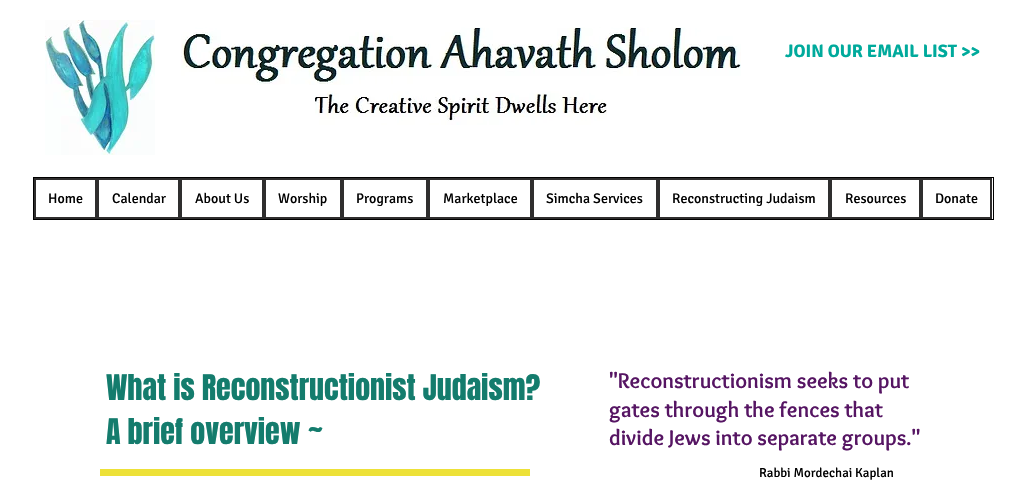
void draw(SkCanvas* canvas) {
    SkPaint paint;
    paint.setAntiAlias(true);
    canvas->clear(0xFFFFFFFF);
    canvas->drawImageRect(SkImages::DeferredFromEncodedData(SkData::MakeFromFileName("img1.png")), SkRect::MakeXYWH(45, 20, 110, 135), SkSamplingOptions());
    canvas->drawImageRect(SkImages::DeferredFromEncodedData(SkData::MakeFromFileName("img2.png")), SkRect::MakeXYWH(181, 27, 560, 58), SkSamplingOptions());
    SkFont font1(fontMgr->matchFamilyStyle("Signika", SkFontStyle::Bold()), 18);
    font1.setSubpixel(true);
    paint.setColor(0xFF00AA9C);
    canvas->drawString("JOIN OUR EMAIL LIST >>", 785, 57, font1, paint);
    canvas->drawImageRect(SkImages::DeferredFromEncodedData(SkData::MakeFromFileName("img3.png")), SkRect::MakeXYWH(315, 91, 292, 34), SkSamplingOptions());
    paint.setStyle(SkPaint::kStroke_Style);
    paint.setStrokeWidth(1);
    paint.setColor(0xFF000000);
    canvas->drawRect(SkRect::MakeXYWH(33.5f, 177.5f, 960, 42), paint);
    paint.setStrokeWidth(2);
    paint.setColor(0xFF2F2E2E);
    canvas->drawRect(SkRect::MakeXYWH(35, 179, 61, 39), paint);
    SkFont font2(fontMgr->matchFamilyStyle("Signika", SkFontStyle::Normal()), 14);
    font2.setSubpixel(true);
    paint.setStyle(SkPaint::kFill_Style);
    paint.setColor(0xFF000000);
    canvas->drawString("Home", 48, 203, font2, paint);
    paint.setStyle(SkPaint::kStroke_Style);
    paint.setColor(0xFF2F2E2E);
    canvas->drawRect(SkRect::MakeXYWH(98, 179, 81, 39), paint);
    paint.setStyle(SkPaint::kFill_Style);
    paint.setColor(0xFF000000);
    canvas->drawString("Calendar", 112, 203, font2, paint);
    paint.setStyle(SkPaint::kStroke_Style);
    paint.setColor(0xFF2F2E2E);
    canvas->drawRect(SkRect::MakeXYWH(181, 179, 82, 39), paint);
    paint.setStyle(SkPaint::kFill_Style);
    paint.setColor(0xFF000000);
    canvas->drawString("About Us", 195, 203, font2, paint);
    paint.setStyle(SkPaint::kStroke_Style);
    paint.setColor(0xFF2F2E2E);
    canvas->drawRect(SkRect::MakeXYWH(265, 179, 76, 39), paint);
    paint.setStyle(SkPaint::kFill_Style);
    paint.setColor(0xFF000000);
    canvas->drawString("Worship", 278, 203, font2, paint);
    paint.setStyle(SkPaint::kStroke_Style);
    paint.setColor(0xFF2F2E2E);
    canvas->drawRect(SkRect::MakeXYWH(343, 179, 84, 39), paint);
    paint.setStyle(SkPaint::kFill_Style);
    paint.setColor(0xFF000000);
    canvas->drawString("Programs", 356, 203, font2, paint);
    paint.setStyle(SkPaint::kStroke_Style);
    paint.setColor(0xFF2F2E2E);
    canvas->drawRect(SkRect::MakeXYWH(429, 179, 102, 39), paint);
    paint.setStyle(SkPaint::kFill_Style);
    paint.setColor(0xFF000000);
    canvas->drawString("Marketplace", 443, 203, font2, paint);
    paint.setStyle(SkPaint::kStroke_Style);
    paint.setColor(0xFF2F2E2E);
    canvas->drawRect(SkRect::MakeXYWH(533, 179, 124, 39), paint);
    paint.setStyle(SkPaint::kFill_Style);
    paint.setColor(0xFF000000);
    canvas->drawString("Simcha Services", 546, 203, font2, paint);
    paint.setStyle(SkPaint::kStroke_Style);
    paint.setColor(0xFF2F2E2E);
    canvas->drawRect(SkRect::MakeXYWH(659, 179, 170, 39), paint);
    paint.setStyle(SkPaint::kFill_Style);
    paint.setColor(0xFF000000);
    canvas->drawString("Reconstructing Judaism", 672, 203, font2, paint);
    paint.setStyle(SkPaint::kStroke_Style);
    paint.setColor(0xFF2F2E2E);
    canvas->drawRect(SkRect::MakeXYWH(831, 179, 89, 39), paint);
    paint.setStyle(SkPaint::kFill_Style);
    paint.setColor(0xFF000000);
    canvas->drawString("Resources", 845, 203, font2, paint);
    paint.setStyle(SkPaint::kStroke_Style);
    paint.setColor(0xFF2F2E2E);
    canvas->drawRect(SkRect::MakeXYWH(922, 179, 69, 39), paint);
    paint.setStyle(SkPaint::kFill_Style);
    paint.setColor(0xFF000000);
    canvas->drawString("Donate", 935, 203, font2, paint);
    SkFont font3(fontMgr->matchFamilyStyle("Anton", SkFontStyle::Normal()), 30);
    font3.setSubpixel(true);
    paint.setColor(0xFF147C6D);
    canvas->drawString("What is Reconstructionist Judaism?", 106, 400, font3, paint);
    canvas->drawString("A brief overview ~", 106, 444, font3, paint);
    SkFont font4(fontMgr->matchFamilyStyle("Overlock", SkFontStyle::Bold()), 22);
    font4.setSubpixel(true);
    paint.setColor(0xFF561563);
    canvas->drawString("\"Reconstructionism seeks to put", 609, 388, font4, paint);
    canvas->drawString("gates through the fences that", 609, 417, font4, paint);
    canvas->drawString("divide Jews into separate groups.\"", 609, 445, font4, paint);
    paint.setColor(0xFFEDE138);
    canvas->drawRect(SkRect::MakeXYWH(100, 469, 430, 7), paint);
    SkFont font5(fontMgr->matchFamilyStyle("Signika", SkFontStyle::Normal()), 13);
    font5.setSubpixel(true);
    paint.setColor(0xFF000000);
    canvas->drawString("Rabbi Mordechai Kaplan", 759, 477, font5, paint);
}
